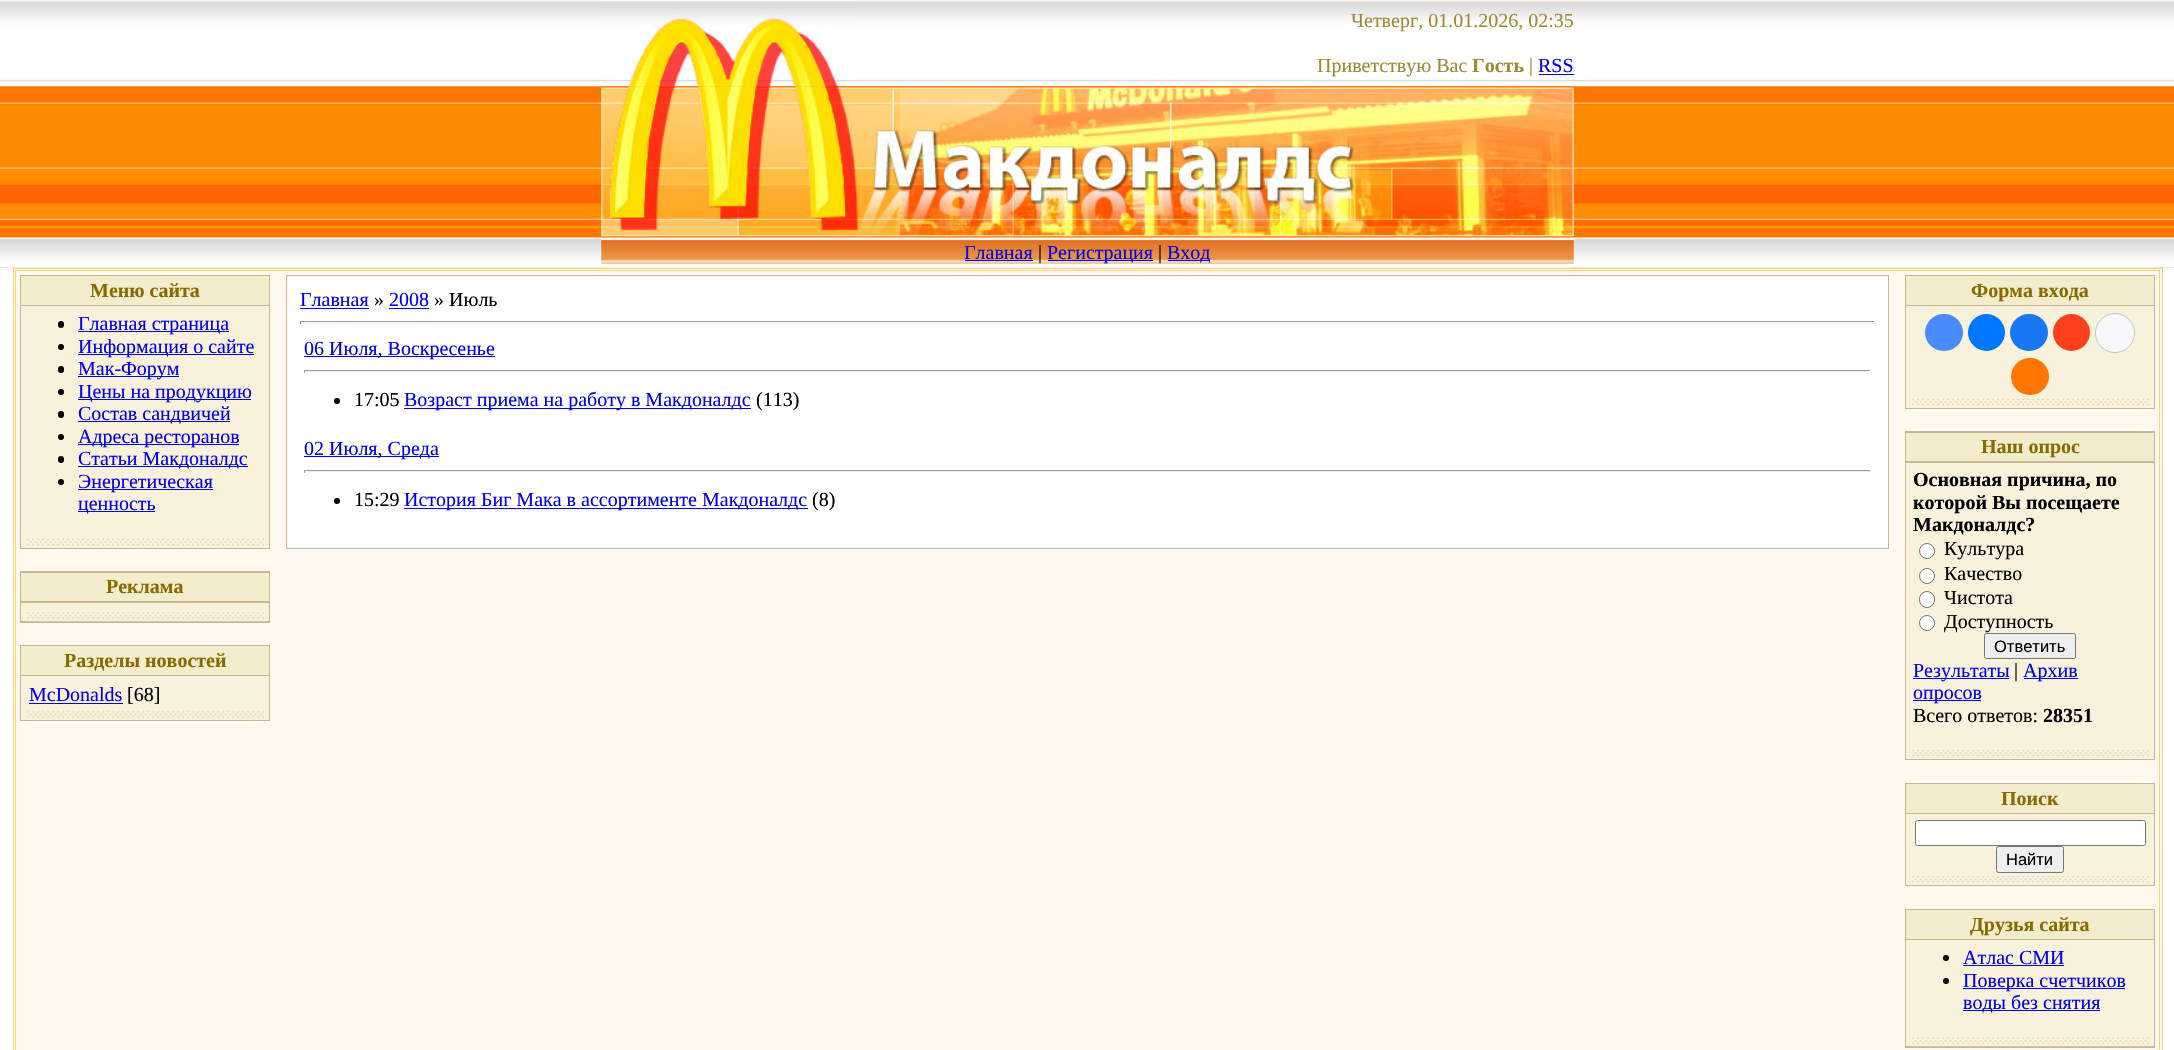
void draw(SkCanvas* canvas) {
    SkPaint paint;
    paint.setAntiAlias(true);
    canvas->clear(0xFFFFFFFF);
    paint.setColor(0xFFFFC388);
    canvas->drawRect(SkRect::MakeXYWH(0, 267, 2174, 1), paint);
    canvas->drawImageRect(SkImages::DeferredFromEncodedData(SkData::MakeFromFileName("img1.png")), SkRect::MakeXYWH(0, 0, 2174, 268), SkSamplingOptions());
    canvas->drawImageRect(SkImages::DeferredFromEncodedData(SkData::MakeFromFileName("img2.png")), SkRect::MakeXYWH(601, 0, 254, 87), SkSamplingOptions());
    SkFont font1(fontMgr->matchFamilyStyle("Liberation Serif", SkFontStyle::Normal()), 20);
    font1.setSubpixel(true);
    paint.setColor(0xFF9D8933);
    canvas->drawString("Четверг, 01.01.2026, 02:35", 1351, 27, font1, paint);
    canvas->drawString("Приветствую Вас", 1317, 72, font1, paint);
    SkFont font2(fontMgr->matchFamilyStyle("Liberation Serif", SkFontStyle::Bold()), 20);
    font2.setSubpixel(true);
    canvas->drawString("Гость", 1472, 72, font2, paint);
    canvas->drawString("|", 1529, 72, font1, paint);
    paint.setColor(0xFF0000EE);
    canvas->drawString("RSS", 1538, 72, font1, paint);
    canvas->drawRect(SkRect::MakeXYWH(1539, 74, 35, 1), paint);
    canvas->drawImageRect(SkImages::DeferredFromEncodedData(SkData::MakeFromFileName("img4.png")), SkRect::MakeXYWH(601, 237, 973, 31), SkSamplingOptions());
    canvas->drawImageRect(SkImages::DeferredFromEncodedData(SkData::MakeFromFileName("img3.png")), SkRect::MakeXYWH(601, 86, 973, 152), SkSamplingOptions());
    canvas->drawString("Главная", 964, 259, font1, paint);
    canvas->drawRect(SkRect::MakeXYWH(965, 260, 68, 1), paint);
    paint.setColor(0xFF000000);
    canvas->drawString("|", 1038, 259, font1, paint);
    paint.setColor(0xFF0000EE);
    canvas->drawRect(SkRect::MakeXYWH(1048, 260, 105, 1), paint);
    canvas->drawString("Регистрация", 1047, 259, font1, paint);
    paint.setColor(0xFF000000);
    canvas->drawString("|", 1158, 259, font1, paint);
    paint.setColor(0xFF0000EE);
    canvas->drawRect(SkRect::MakeXYWH(1168, 260, 42, 1), paint);
    canvas->drawString("Вход", 1167, 259, font1, paint);
    paint.setColor(0xFFFFF9EF);
    canvas->drawRect(SkRect::MakeXYWH(13.5f, 268.5f, 2149, 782), paint);
    paint.setStyle(SkPaint::kStroke_Style);
    paint.setStrokeWidth(1);
    paint.setColor(0xFFFFD17B);
    canvas->drawRect(SkRect::MakeXYWH(13.5f, 268.5f, 2149, 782), paint);
    canvas->drawRect(SkRect::MakeXYWH(15.5f, 270.5f, 2144, 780), paint);
    paint.setStyle(SkPaint::kFill_Style);
    paint.setColor(0xFFCBB592);
    canvas->drawRect(SkRect::MakeXYWH(20, 275, 250, 274), paint);
    paint.setColor(0xFFF3ECCD);
    canvas->drawRect(SkRect::MakeXYWH(21, 276, 248, 29), paint);
    paint.setColor(0xFF856B00);
    canvas->drawString("Меню сайта", 90, 297, font2, paint);
    paint.setColor(0xFFF8F1DC);
    canvas->drawRect(SkRect::MakeXYWH(21, 306, 248, 242), paint);
    canvas->drawImageRect(SkImages::DeferredFromEncodedData(SkData::MakeFromFileName("img5.png")), SkRect::MakeXYWH(27, 538, 237, 8), SkSamplingOptions());
    paint.setColor(0xFF000000);
    canvas->drawRoundRect(SkRect::MakeXYWH(58, 321, 6, 7), 3, 3, paint);
    paint.setColor(0xFF0000EE);
    canvas->drawRect(SkRect::MakeXYWH(78, 331, 151, 1), paint);
    canvas->drawString("Главная страница", 78, 330, font1, paint);
    paint.setColor(0xFF000000);
    canvas->drawCircle(61, 347, 3, paint);
    paint.setColor(0xFF0000EE);
    canvas->drawRect(SkRect::MakeXYWH(78, 354, 176, 1), paint);
    canvas->drawString("Информация о сайте", 78, 353, font1, paint);
    paint.setColor(0xFF000000);
    canvas->drawRoundRect(SkRect::MakeXYWH(58, 366, 6, 7), 3, 3, paint);
    paint.setColor(0xFF0000EE);
    canvas->drawRect(SkRect::MakeXYWH(78, 376, 101, 1), paint);
    canvas->drawString("Мак-Форум", 78, 375, font1, paint);
    paint.setColor(0xFF000000);
    canvas->drawCircle(61, 392, 3, paint);
    paint.setColor(0xFF0000EE);
    canvas->drawRect(SkRect::MakeXYWH(78, 399, 173, 1), paint);
    canvas->drawString("Цены на продукцию", 78, 398, font1, paint);
    paint.setColor(0xFF000000);
    canvas->drawRoundRect(SkRect::MakeXYWH(58, 411, 6, 7), 3, 3, paint);
    paint.setColor(0xFF0000EE);
    canvas->drawRect(SkRect::MakeXYWH(78, 421, 152, 1), paint);
    canvas->drawString("Состав сандвичей", 78, 420, font1, paint);
    paint.setColor(0xFF000000);
    canvas->drawCircle(61, 437, 3, paint);
    paint.setColor(0xFF0000EE);
    canvas->drawRect(SkRect::MakeXYWH(78, 444, 161, 1), paint);
    canvas->drawString("Адреса ресторанов", 78, 443, font1, paint);
    paint.setColor(0xFF000000);
    canvas->drawRoundRect(SkRect::MakeXYWH(58, 456, 6, 7), 3, 3, paint);
    paint.setColor(0xFF0000EE);
    canvas->drawRect(SkRect::MakeXYWH(78, 466, 170, 1), paint);
    canvas->drawString("Статьи Макдоналдс", 78, 465, font1, paint);
    paint.setColor(0xFF000000);
    canvas->drawCircle(61, 482, 3, paint);
    paint.setColor(0xFF0000EE);
    canvas->drawRect(SkRect::MakeXYWH(78, 489, 135, 1), paint);
    canvas->drawString("Энергетическая", 78, 488, font1, paint);
    canvas->drawRect(SkRect::MakeXYWH(78, 511, 77, 1), paint);
    canvas->drawString("ценность", 78, 510, font1, paint);
    paint.setColor(0xFFCBB592);
    canvas->drawRect(SkRect::MakeXYWH(20, 571, 250, 52), paint);
    paint.setColor(0xFFF3ECCD);
    canvas->drawRect(SkRect::MakeXYWH(21, 573, 248, 28), paint);
    paint.setColor(0xFF856B00);
    canvas->drawString("Реклама", 106, 593, font2, paint);
    paint.setColor(0xFFF8F1DC);
    canvas->drawRect(SkRect::MakeXYWH(21, 603, 248, 18), paint);
    canvas->drawImageRect(SkImages::DeferredFromEncodedData(SkData::MakeFromFileName("img6.png")), SkRect::MakeXYWH(25, 612, 242, 10), SkSamplingOptions());
    paint.setColor(0xFFCBB592);
    canvas->drawRect(SkRect::MakeXYWH(20, 645, 250, 76), paint);
    paint.setColor(0xFFF3ECCD);
    canvas->drawRect(SkRect::MakeXYWH(21, 646, 248, 29), paint);
    paint.setColor(0xFF856B00);
    canvas->drawString("Разделы новостей", 64, 667, font2, paint);
    paint.setColor(0xFFF8F1DC);
    canvas->drawRect(SkRect::MakeXYWH(21, 676, 248, 44), paint);
    canvas->drawImageRect(SkImages::DeferredFromEncodedData(SkData::MakeFromFileName("img7.png")), SkRect::MakeXYWH(27, 711, 237, 7), SkSamplingOptions());
    paint.setColor(0xFF0000EE);
    canvas->drawString("McDonalds", 29, 701, font1, paint);
    canvas->drawRect(SkRect::MakeXYWH(29, 703, 94, 1), paint);
    paint.setColor(0xFF000000);
    canvas->drawString("[68]", 127, 701, font1, paint);
    paint.setStyle(SkPaint::kStroke_Style);
    paint.setColor(0xFFCBB592);
    canvas->drawRect(SkRect::MakeXYWH(286.5f, 275.5f, 1602, 273), paint);
    paint.setStyle(SkPaint::kFill_Style);
    paint.setColor(0xFFFFFFFF);
    canvas->drawRect(SkRect::MakeXYWH(288, 276, 1600, 272), paint);
    paint.setColor(0xFF0000EE);
    canvas->drawString("Главная", 300, 306, font1, paint);
    canvas->drawRect(SkRect::MakeXYWH(300, 308, 69, 1), paint);
    paint.setColor(0xFF000000);
    canvas->drawString("»", 374, 306, font1, paint);
    paint.setColor(0xFF0000EE);
    canvas->drawString("2008", 389, 306, font1, paint);
    canvas->drawRect(SkRect::MakeXYWH(389, 308, 40, 1), paint);
    paint.setColor(0xFF000000);
    canvas->drawString("» Июль", 434, 306, font1, paint);
    paint.setColor(0xFF9F9F9F);
    canvas->drawRect(SkRect::MakeXYWH(300, 321, 1575, 1), paint);
    paint.setColor(0xFFEEEEEE);
    canvas->drawRect(SkRect::MakeXYWH(1874, 321, 1, 3), paint);
    canvas->drawRect(SkRect::MakeXYWH(300, 323, 1575, 1), paint);
    paint.setColor(0xFF9F9F9F);
    canvas->drawRect(SkRect::MakeXYWH(300, 321, 1, 3), paint);
    paint.setColor(0xFF0000EE);
    canvas->drawRect(SkRect::MakeXYWH(304, 356, 191, 1), paint);
    canvas->drawString("06 Июля, Воскресенье", 304, 355, font1, paint);
    paint.setColor(0xFF9F9F9F);
    canvas->drawRect(SkRect::MakeXYWH(304, 370, 1567, 1), paint);
    paint.setColor(0xFFEEEEEE);
    canvas->drawRect(SkRect::MakeXYWH(1870, 370, 1, 3), paint);
    canvas->drawRect(SkRect::MakeXYWH(304, 371, 1567, 1), paint);
    paint.setColor(0xFF9F9F9F);
    canvas->drawRect(SkRect::MakeXYWH(304, 370, 1, 3), paint);
    paint.setColor(0xFF000000);
    canvas->drawCircle(337, 401, 3, paint);
    canvas->drawString("17:05", 354, 406, font1, paint);
    paint.setColor(0xFF0000EE);
    canvas->drawRect(SkRect::MakeXYWH(404, 408, 347, 1), paint);
    canvas->drawString("Возраст приема на работу в Макдоналдс", 404, 406, font1, paint);
    paint.setColor(0xFF000000);
    canvas->drawString("(113)", 756, 406, font1, paint);
    paint.setColor(0xFF0000EE);
    canvas->drawRect(SkRect::MakeXYWH(304, 456, 135, 1), paint);
    canvas->drawString("02 Июля, Среда", 304, 455, font1, paint);
    paint.setColor(0xFF9F9F9F);
    canvas->drawRect(SkRect::MakeXYWH(304, 470, 1567, 1), paint);
    paint.setColor(0xFFEEEEEE);
    canvas->drawRect(SkRect::MakeXYWH(1870, 470, 1, 3), paint);
    canvas->drawRect(SkRect::MakeXYWH(304, 471, 1567, 1), paint);
    paint.setColor(0xFF9F9F9F);
    canvas->drawRect(SkRect::MakeXYWH(304, 470, 1, 3), paint);
    paint.setColor(0xFF000000);
    canvas->drawCircle(337, 501, 3, paint);
    canvas->drawString("15:29", 354, 506, font1, paint);
    paint.setColor(0xFF0000EE);
    canvas->drawRect(SkRect::MakeXYWH(404, 508, 404, 1), paint);
    canvas->drawString("История Биг Мака в ассортименте Макдоналдс", 404, 506, font1, paint);
    paint.setColor(0xFF000000);
    canvas->drawString("(8)", 812, 506, font1, paint);
    paint.setColor(0xFFCBB592);
    canvas->drawRect(SkRect::MakeXYWH(1905, 275, 250, 134), paint);
    paint.setColor(0xFFF3ECCD);
    canvas->drawRect(SkRect::MakeXYWH(1906, 276, 248, 29), paint);
    paint.setColor(0xFF856B00);
    canvas->drawString("Форма входа", 1971, 297, font2, paint);
    paint.setColor(0xFFF8F1DC);
    canvas->drawRect(SkRect::MakeXYWH(1906, 306, 248, 102), paint);
    canvas->drawImageRect(SkImages::DeferredFromEncodedData(SkData::MakeFromFileName("img8.png")), SkRect::MakeXYWH(1912, 398, 237, 8), SkSamplingOptions());
    paint.setColor(0xFF498BFA);
    canvas->drawRoundRect(SkRect::MakeXYWH(1925, 314, 38, 37), 18.5f, 18.5f, paint);
    paint.setColor(0xFF0077FF);
    canvas->drawCircle(1986.5f, 332.5f, 18.5f, paint);
    paint.setColor(0xFF1877F2);
    canvas->drawRoundRect(SkRect::MakeXYWH(2010, 314, 38, 37), 18.5f, 18.5f, paint);
    paint.setColor(0xFFFC3F1D);
    canvas->drawCircle(2071.5f, 332.5f, 18.5f, paint);
    paint.setColor(0xFFF8F8FC);
    canvas->drawCircle(2115, 333, 19.5f, paint);
    paint.setStyle(SkPaint::kStroke_Style);
    paint.setColor(0xFFC4C4C4);
    canvas->drawCircle(2115, 333, 19.5f, paint);
    paint.setStyle(SkPaint::kFill_Style);
    paint.setColor(0xFFFF7700);
    canvas->drawRoundRect(SkRect::MakeXYWH(2011, 358, 38, 37), 18.5f, 18.5f, paint);
    paint.setColor(0xFFCBB592);
    canvas->drawRect(SkRect::MakeXYWH(1905, 431, 250, 329), paint);
    paint.setColor(0xFFF3ECCD);
    canvas->drawRect(SkRect::MakeXYWH(1906, 433, 248, 28), paint);
    paint.setColor(0xFF856B00);
    canvas->drawString("Наш опрос", 1981, 453, font2, paint);
    paint.setColor(0xFFF8F1DC);
    canvas->drawRect(SkRect::MakeXYWH(1906, 463, 248, 296), paint);
    canvas->drawImageRect(SkImages::DeferredFromEncodedData(SkData::MakeFromFileName("img9.png")), SkRect::MakeXYWH(1912, 750, 237, 7), SkSamplingOptions());
    paint.setColor(0xFF000000);
    canvas->drawString("Основная причина, по", 1913, 486, font2, paint);
    canvas->drawString("которой Вы посещаете", 1913, 509, font2, paint);
    canvas->drawString("Макдоналдс?", 1913, 531, font2, paint);
    paint.setColor(0xFFFFFFFF);
    canvas->drawCircle(1927, 551, 7.5f, paint);
    paint.setStyle(SkPaint::kStroke_Style);
    paint.setColor(0xFF767676);
    canvas->drawCircle(1927, 551, 7.5f, paint);
    paint.setStyle(SkPaint::kFill_Style);
    paint.setColor(0xFF000000);
    canvas->drawString("Культура", 1944, 555, font1, paint);
    paint.setColor(0xFFFFFFFF);
    canvas->drawCircle(1927, 576, 7.5f, paint);
    paint.setStyle(SkPaint::kStroke_Style);
    paint.setColor(0xFF767676);
    canvas->drawCircle(1927, 576, 7.5f, paint);
    paint.setStyle(SkPaint::kFill_Style);
    paint.setColor(0xFF000000);
    canvas->drawString("Качество", 1944, 580, font1, paint);
    paint.setColor(0xFFFFFFFF);
    canvas->drawRoundRect(SkRect::MakeXYWH(1919.5f, 591.5f, 15, 16), 7.5f, 7.5f, paint);
    paint.setStyle(SkPaint::kStroke_Style);
    paint.setColor(0xFF767676);
    canvas->drawRoundRect(SkRect::MakeXYWH(1919.5f, 591.5f, 15, 16), 7.5f, 7.5f, paint);
    paint.setStyle(SkPaint::kFill_Style);
    paint.setColor(0xFF000000);
    canvas->drawString("Чистота", 1944, 604, font1, paint);
    paint.setColor(0xFFFFFFFF);
    canvas->drawCircle(1927, 623, 7.5f, paint);
    paint.setStyle(SkPaint::kStroke_Style);
    paint.setColor(0xFF767676);
    canvas->drawCircle(1927, 623, 7.5f, paint);
    paint.setStyle(SkPaint::kFill_Style);
    paint.setColor(0xFF000000);
    canvas->drawString("Доступность", 1944, 628, font1, paint);
    paint.setColor(0xFFEFEFEF);
    canvas->drawRoundRect(SkRect::MakeXYWH(1984.5f, 633.5f, 91, 25), 2, 2, paint);
    paint.setStyle(SkPaint::kStroke_Style);
    paint.setColor(0xFF767676);
    canvas->drawRoundRect(SkRect::MakeXYWH(1984.5f, 633.5f, 91, 25), 2, 2, paint);
    SkFont font3(fontMgr->matchFamilyStyle("Liberation Sans", SkFontStyle::Normal()), 16.5f);
    font3.setSubpixel(true);
    paint.setStyle(SkPaint::kFill_Style);
    paint.setColor(0xFF000000);
    canvas->drawString("Ответить", 1994, 652, font3, paint);
    paint.setColor(0xFF0000EE);
    canvas->drawRect(SkRect::MakeXYWH(1913, 678, 96, 1), paint);
    canvas->drawString("Результаты", 1913, 677, font1, paint);
    paint.setColor(0xFF000000);
    canvas->drawString("|", 2014, 677, font1, paint);
    paint.setColor(0xFF0000EE);
    canvas->drawRect(SkRect::MakeXYWH(2024, 678, 54, 1), paint);
    canvas->drawString("Архив", 2023, 677, font1, paint);
    canvas->drawRect(SkRect::MakeXYWH(1913, 700, 68, 1), paint);
    canvas->drawString("опросов", 1913, 699, font1, paint);
    paint.setColor(0xFF000000);
    canvas->drawString("Всего ответов:", 1913, 722, font1, paint);
    canvas->drawString("28351", 2043, 722, font2, paint);
    paint.setColor(0xFFCBB592);
    canvas->drawRect(SkRect::MakeXYWH(1905, 783, 250, 103), paint);
    paint.setColor(0xFFF3ECCD);
    canvas->drawRect(SkRect::MakeXYWH(1906, 784, 248, 29), paint);
    paint.setColor(0xFF856B00);
    canvas->drawString("Поиск", 2001, 805, font2, paint);
    paint.setColor(0xFFF8F1DC);
    canvas->drawRect(SkRect::MakeXYWH(1906, 814, 248, 71), paint);
    canvas->drawImageRect(SkImages::DeferredFromEncodedData(SkData::MakeFromFileName("img10.png")), SkRect::MakeXYWH(1912, 876, 237, 7), SkSamplingOptions());
    paint.setColor(0xFFFFFFFF);
    canvas->drawRoundRect(SkRect::MakeXYWH(1915.5f, 820.5f, 230, 25), 2, 2, paint);
    paint.setStyle(SkPaint::kStroke_Style);
    paint.setColor(0xFF767676);
    canvas->drawRoundRect(SkRect::MakeXYWH(1915.5f, 820.5f, 230, 25), 2, 2, paint);
    paint.setStyle(SkPaint::kFill_Style);
    paint.setColor(0xFFEFEFEF);
    canvas->drawRoundRect(SkRect::MakeXYWH(1996.5f, 846.5f, 67, 26), 2, 2, paint);
    paint.setStyle(SkPaint::kStroke_Style);
    paint.setColor(0xFF767676);
    canvas->drawRoundRect(SkRect::MakeXYWH(1996.5f, 846.5f, 67, 26), 2, 2, paint);
    paint.setStyle(SkPaint::kFill_Style);
    paint.setColor(0xFF000000);
    canvas->drawString("Найти", 2006, 865, font3, paint);
    paint.setColor(0xFFCBB592);
    canvas->drawRect(SkRect::MakeXYWH(1905, 909, 250, 139), paint);
    paint.setColor(0xFFF3ECCD);
    canvas->drawRect(SkRect::MakeXYWH(1906, 910, 248, 29), paint);
    paint.setColor(0xFF856B00);
    canvas->drawString("Друзья сайта", 1970, 931, font2, paint);
    paint.setColor(0xFFF8F1DC);
    canvas->drawRect(SkRect::MakeXYWH(1906, 940, 248, 106), paint);
    canvas->drawImageRect(SkImages::DeferredFromEncodedData(SkData::MakeFromFileName("img11.png")), SkRect::MakeXYWH(1910, 1037, 242, 10), SkSamplingOptions());
    paint.setColor(0xFF000000);
    canvas->drawCircle(1946, 958, 3, paint);
    paint.setColor(0xFF0000EE);
    canvas->drawString("Атлас СМИ", 1963, 964, font1, paint);
    canvas->drawRect(SkRect::MakeXYWH(1963, 965, 101, 1), paint);
    paint.setColor(0xFF000000);
    canvas->drawCircle(1946, 981, 3, paint);
    paint.setColor(0xFF0000EE);
    canvas->drawRect(SkRect::MakeXYWH(1963, 988, 162, 1), paint);
    canvas->drawString("Поверка счетчиков", 1963, 987, font1, paint);
    canvas->drawRect(SkRect::MakeXYWH(1963, 1010, 137, 1), paint);
    canvas->drawString("воды без снятия", 1963, 1009, font1, paint);
}
